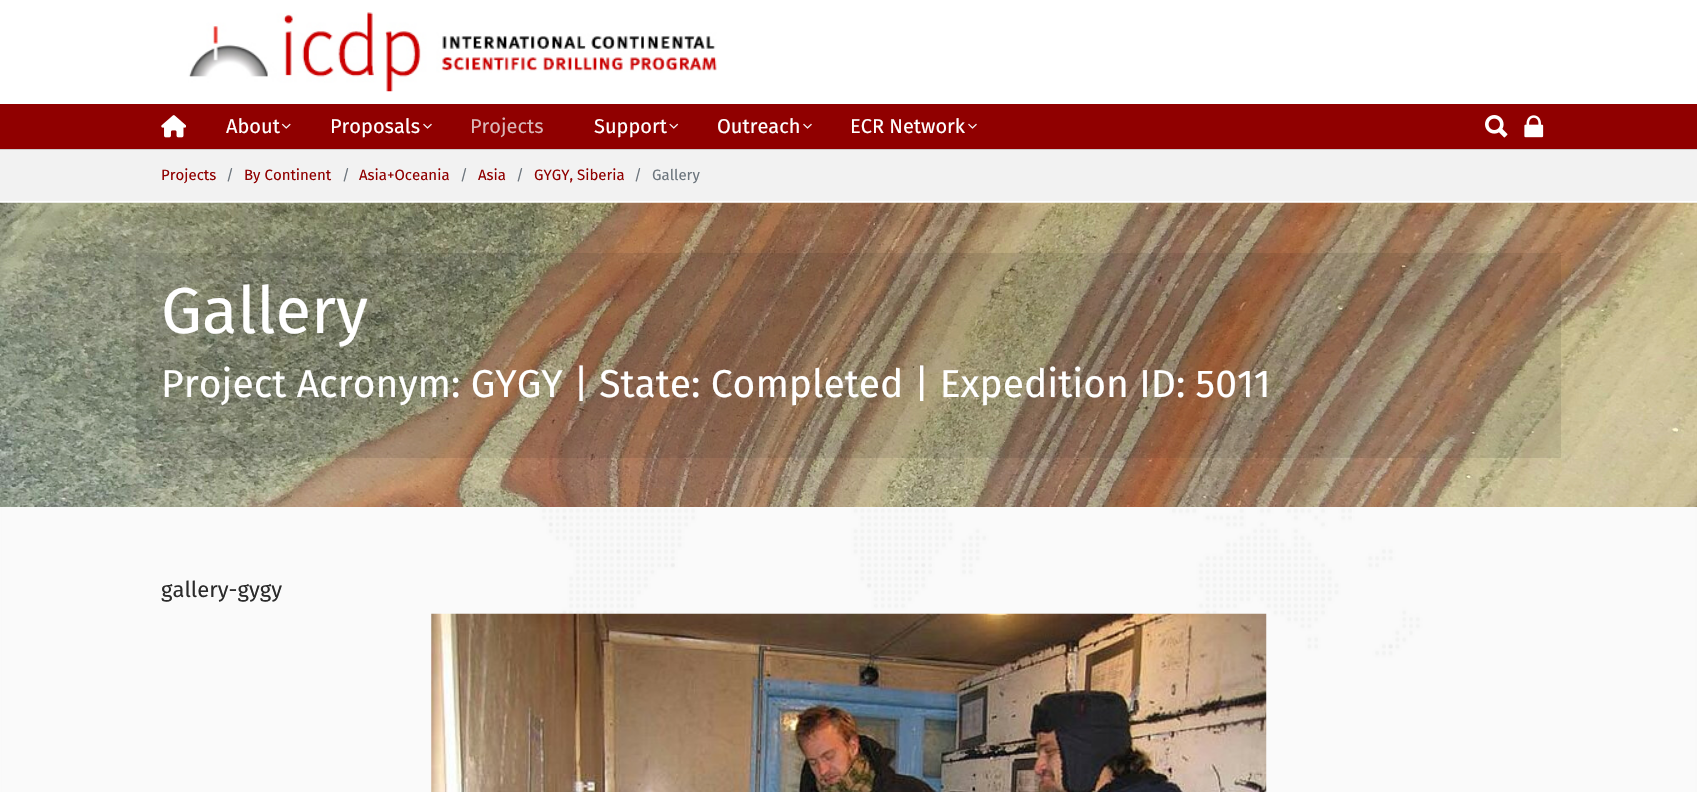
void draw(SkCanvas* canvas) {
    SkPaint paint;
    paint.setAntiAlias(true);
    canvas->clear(0xFFFFFFFF);
    canvas->drawImageRect(SkImages::DeferredFromEncodedData(SkData::MakeFromFileName("img1.png")), SkRect::MakeXYWH(188, 12, 529, 80), SkSamplingOptions());
    paint.setColor(0xFFCECECE);
    canvas->drawPath(SkPathBuilder().moveTo(0, 149).lineTo(0, 150).lineTo(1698, 150).lineTo(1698, 105).lineTo(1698, 149).close().detach(), paint);
    paint.setColor(0xFF900000);
    canvas->drawRect(SkRect::MakeXYWH(0, 104, 1697, 45), paint);
    canvas->drawImageRect(SkImages::DeferredFromEncodedData(SkData::MakeFromFileName("img2.png")), SkRect::MakeXYWH(161, 115, 25, 23), SkSamplingOptions());
    SkFont font1(fontMgr->matchFamilyStyle("Fira Sans", SkFontStyle::Normal()), 20);
    font1.setSubpixel(true);
    paint.setColor(0xFFFFFFFF);
    canvas->drawString("About", 226, 133, font1, paint);
    canvas->drawImageRect(SkImages::DeferredFromEncodedData(SkData::MakeFromFileName("img3.png")), SkRect::MakeXYWH(281, 123, 10, 6), SkSamplingOptions());
    canvas->drawString("Proposals", 330, 133, font1, paint);
    canvas->drawImageRect(SkImages::DeferredFromEncodedData(SkData::MakeFromFileName("img4.png")), SkRect::MakeXYWH(423, 123, 9, 6), SkSamplingOptions());
    paint.setColor(0xFFDAB8B8);
    canvas->drawString("Projects", 470, 133, font1, paint);
    paint.setColor(0xFFFFFFFF);
    canvas->drawString("Support", 594, 133, font1, paint);
    canvas->drawImageRect(SkImages::DeferredFromEncodedData(SkData::MakeFromFileName("img5.png")), SkRect::MakeXYWH(669, 123, 10, 6), SkSamplingOptions());
    canvas->drawString("Outreach", 717, 133, font1, paint);
    canvas->drawImageRect(SkImages::DeferredFromEncodedData(SkData::MakeFromFileName("img4.png")), SkRect::MakeXYWH(803, 123, 9, 6), SkSamplingOptions());
    canvas->drawString("ECR Network", 850, 133, font1, paint);
    canvas->drawImageRect(SkImages::DeferredFromEncodedData(SkData::MakeFromFileName("img4.png")), SkRect::MakeXYWH(968, 123, 9, 6), SkSamplingOptions());
    canvas->drawImageRect(SkImages::DeferredFromEncodedData(SkData::MakeFromFileName("img6.png")), SkRect::MakeXYWH(1485, 115, 23, 23), SkSamplingOptions());
    canvas->drawImageRect(SkImages::DeferredFromEncodedData(SkData::MakeFromFileName("img7.png")), SkRect::MakeXYWH(1524, 115, 20, 23), SkSamplingOptions());
    paint.setColor(0xFFF2F2F2);
    canvas->drawRect(SkRect::MakeXYWH(0, 150, 1697, 51), paint);
    SkFont font2(fontMgr->matchFamilyStyle("Fira Sans", SkFontStyle::Normal()), 15);
    font2.setSubpixel(true);
    paint.setColor(0xFF900000);
    canvas->drawString("Projects", 161, 180, font2, paint);
    paint.setColor(0xFF6C757D);
    canvas->drawString("/", 226, 180, font2, paint);
    paint.setColor(0xFF900000);
    canvas->drawString("By Continent", 244, 180, font2, paint);
    paint.setColor(0xFF6C757D);
    canvas->drawString("/", 342, 180, font2, paint);
    paint.setColor(0xFF900000);
    canvas->drawString("Asia+Oceania", 359, 180, font2, paint);
    paint.setColor(0xFF6C757D);
    canvas->drawString("/", 460, 180, font2, paint);
    paint.setColor(0xFF900000);
    canvas->drawString("Asia", 478, 180, font2, paint);
    paint.setColor(0xFF6C757D);
    canvas->drawString("/", 516, 180, font2, paint);
    paint.setColor(0xFF900000);
    canvas->drawString("GYGY, Siberia", 534, 180, font2, paint);
    paint.setColor(0xFF6C757D);
    canvas->drawString("/", 634, 180, font2, paint);
    canvas->drawString("Gallery", 652, 180, font2, paint);
    canvas->drawImageRect(SkImages::DeferredFromEncodedData(SkData::MakeFromFileName("img8.png")), SkRect::MakeXYWH(0, 202, 1697, 305), SkSamplingOptions());
    paint.setColor(0x17000000);
    canvas->drawRect(SkRect::MakeXYWH(136, 253, 1425, 205), paint);
    SkFont font3(fontMgr->matchFamilyStyle("Fira Sans", SkFontStyle::Normal()), 65);
    font3.setSubpixel(true);
    paint.setColor(0xFFFFFFFF);
    canvas->drawString("Gallery", 161, 333, font3, paint);
    SkFont font4(fontMgr->matchFamilyStyle("Fira Sans", SkFontStyle::Normal()), 39);
    font4.setSubpixel(true);
    canvas->drawString("Project Acronym: GYGY | State: Completed | Expedition ID: 5011", 161, 397, font4, paint);
    canvas->drawImageRect(SkImages::DeferredFromEncodedData(SkData::MakeFromFileName("img9.png")), SkRect::MakeXYWH(0, 507, 1697, 285), SkSamplingOptions());
    SkFont font5(fontMgr->matchFamilyStyle("Fira Sans", SkFontStyle::Normal()), 22);
    font5.setSubpixel(true);
    paint.setColor(0xFF2B2B2B);
    canvas->drawString("gallery-gygy", 161, 597, font5, paint);
    canvas->drawImageRect(SkImages::DeferredFromEncodedData(SkData::MakeFromFileName("img10.png")), SkRect::MakeXYWH(431, 613, 836, 179), SkSamplingOptions());
}
